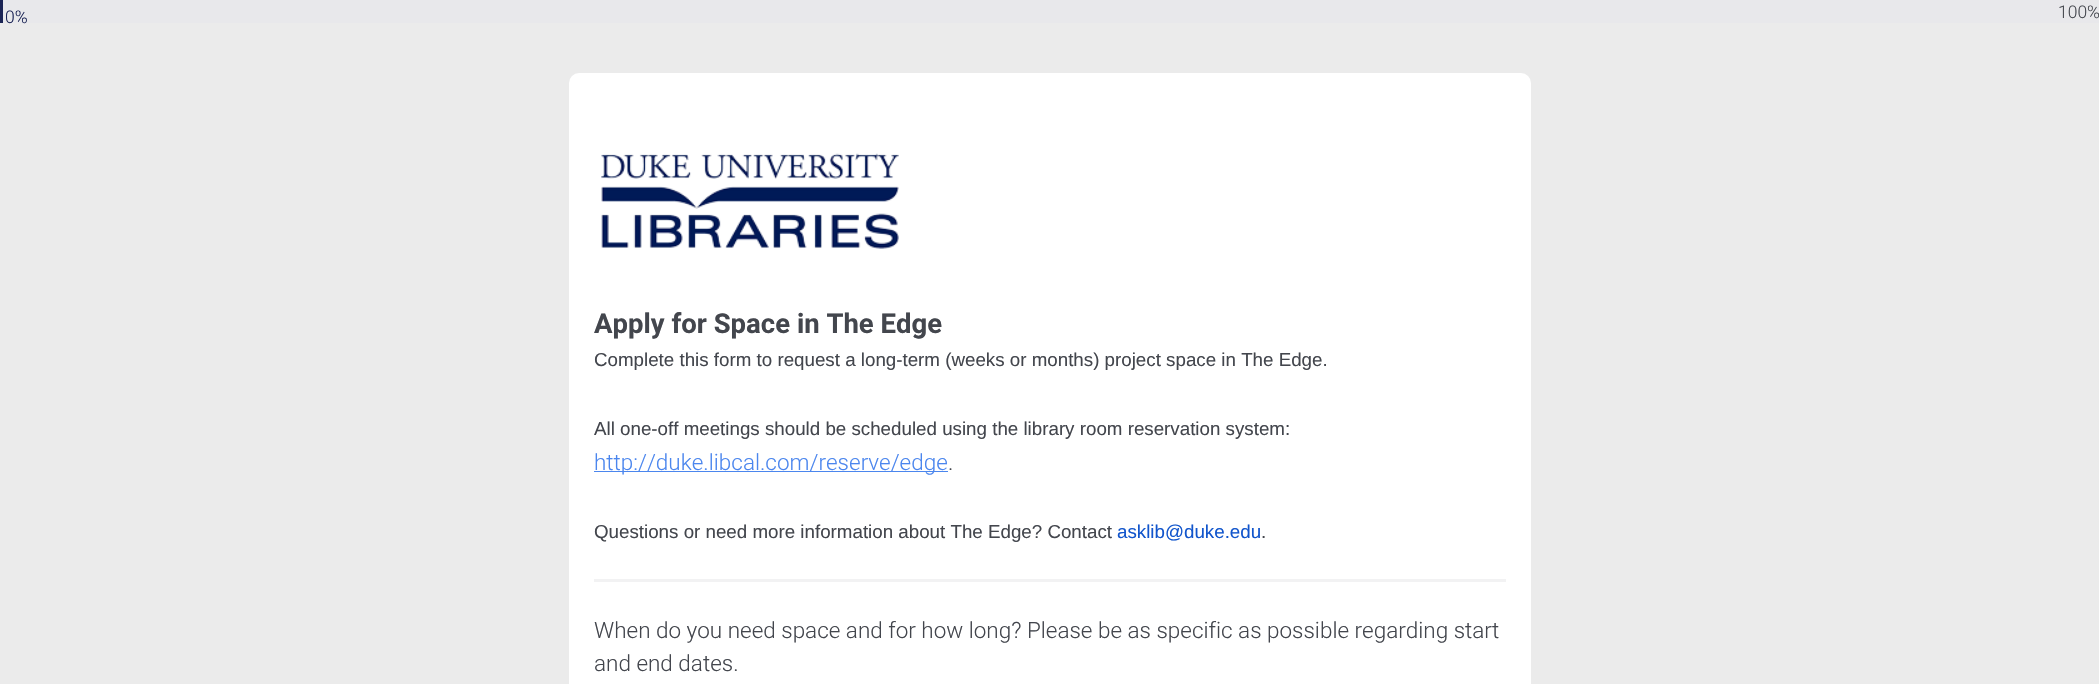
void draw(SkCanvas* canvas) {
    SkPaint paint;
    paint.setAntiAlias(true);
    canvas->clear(0xFFEBEBEB);
    paint.setColor(0xFF1A2354);
    canvas->drawRect(SkRect::MakeXYWH(0, 0, 3, 23), paint);
    paint.setColor(0xFFE8E8EB);
    canvas->drawRect(SkRect::MakeXYWH(3, 0, 2096, 23), paint);
    SkFont font1(fontMgr->matchFamilyStyle("Roboto", SkFontStyle(300, SkFontStyle::kNormal_Width, SkFontStyle::kUpright_Slant)), 17.5f);
    font1.setSubpixel(true);
    paint.setColor(0xFF1A2354);
    canvas->drawString("0%", 5, 23, font1, paint);
    paint.setColor(0xFF43464D);
    canvas->drawString("100%", 2058, 18, font1, paint);
    paint.setColor(0xFFFFFFFF);
    canvas->drawRoundRect(SkRect::MakeXYWH(569, 73, 962, 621), 10, 10, paint);
    canvas->drawImageRect(SkImages::DeferredFromEncodedData(SkData::MakeFromFileName("img1.png")), SkRect::MakeXYWH(601, 153, 298, 96), SkSamplingOptions());
    SkFont font2(fontMgr->matchFamilyStyle("Roboto", SkFontStyle::Bold()), 27.5f);
    font2.setSubpixel(true);
    paint.setColor(0xFF43464D);
    canvas->drawString("Apply for Space in The Edge", 594, 333, font2, paint);
    SkFont font3(fontMgr->matchFamilyStyle("Liberation Sans", SkFontStyle::Normal()), 18.75f);
    font3.setSubpixel(true);
    canvas->drawString("Complete this form to request a long-term (weeks or months) project space in The Edge.", 594, 366, font3, paint);
    canvas->drawString("All one-off meetings should be scheduled using the library room reservation system:", 594, 435, font3, paint);
    paint.setColor(0xFF4B86EE);
    canvas->drawRect(SkRect::MakeXYWH(594, 471, 354, 1), paint);
    SkFont font4(fontMgr->matchFamilyStyle("Roboto", SkFontStyle(300, SkFontStyle::kNormal_Width, SkFontStyle::kUpright_Slant)), 22.5f);
    font4.setSubpixel(true);
    canvas->drawString("http://duke.libcal.com/reserve/edge", 594, 470, font4, paint);
    paint.setColor(0xFF43464D);
    canvas->drawString(".", 948, 470, font4, paint);
    canvas->drawString("Questions or need more information about The Edge? Contact", 594, 538, font3, paint);
    paint.setColor(0xFF1155CC);
    canvas->drawString("asklib@duke.edu", 1117, 538, font3, paint);
    paint.setColor(0xFF43464D);
    canvas->drawString(".", 1261, 538, font3, paint);
    paint.setColor(0xFFF2F2F3);
    canvas->drawRect(SkRect::MakeXYWH(594, 579, 912, 3), paint);
    paint.setColor(0xFF43464D);
    canvas->drawString("When do you need space and for how long? Please be as specific as possible regarding start", 594, 638, font4, paint);
    canvas->drawString("and end dates.", 594, 671, font4, paint);
}
